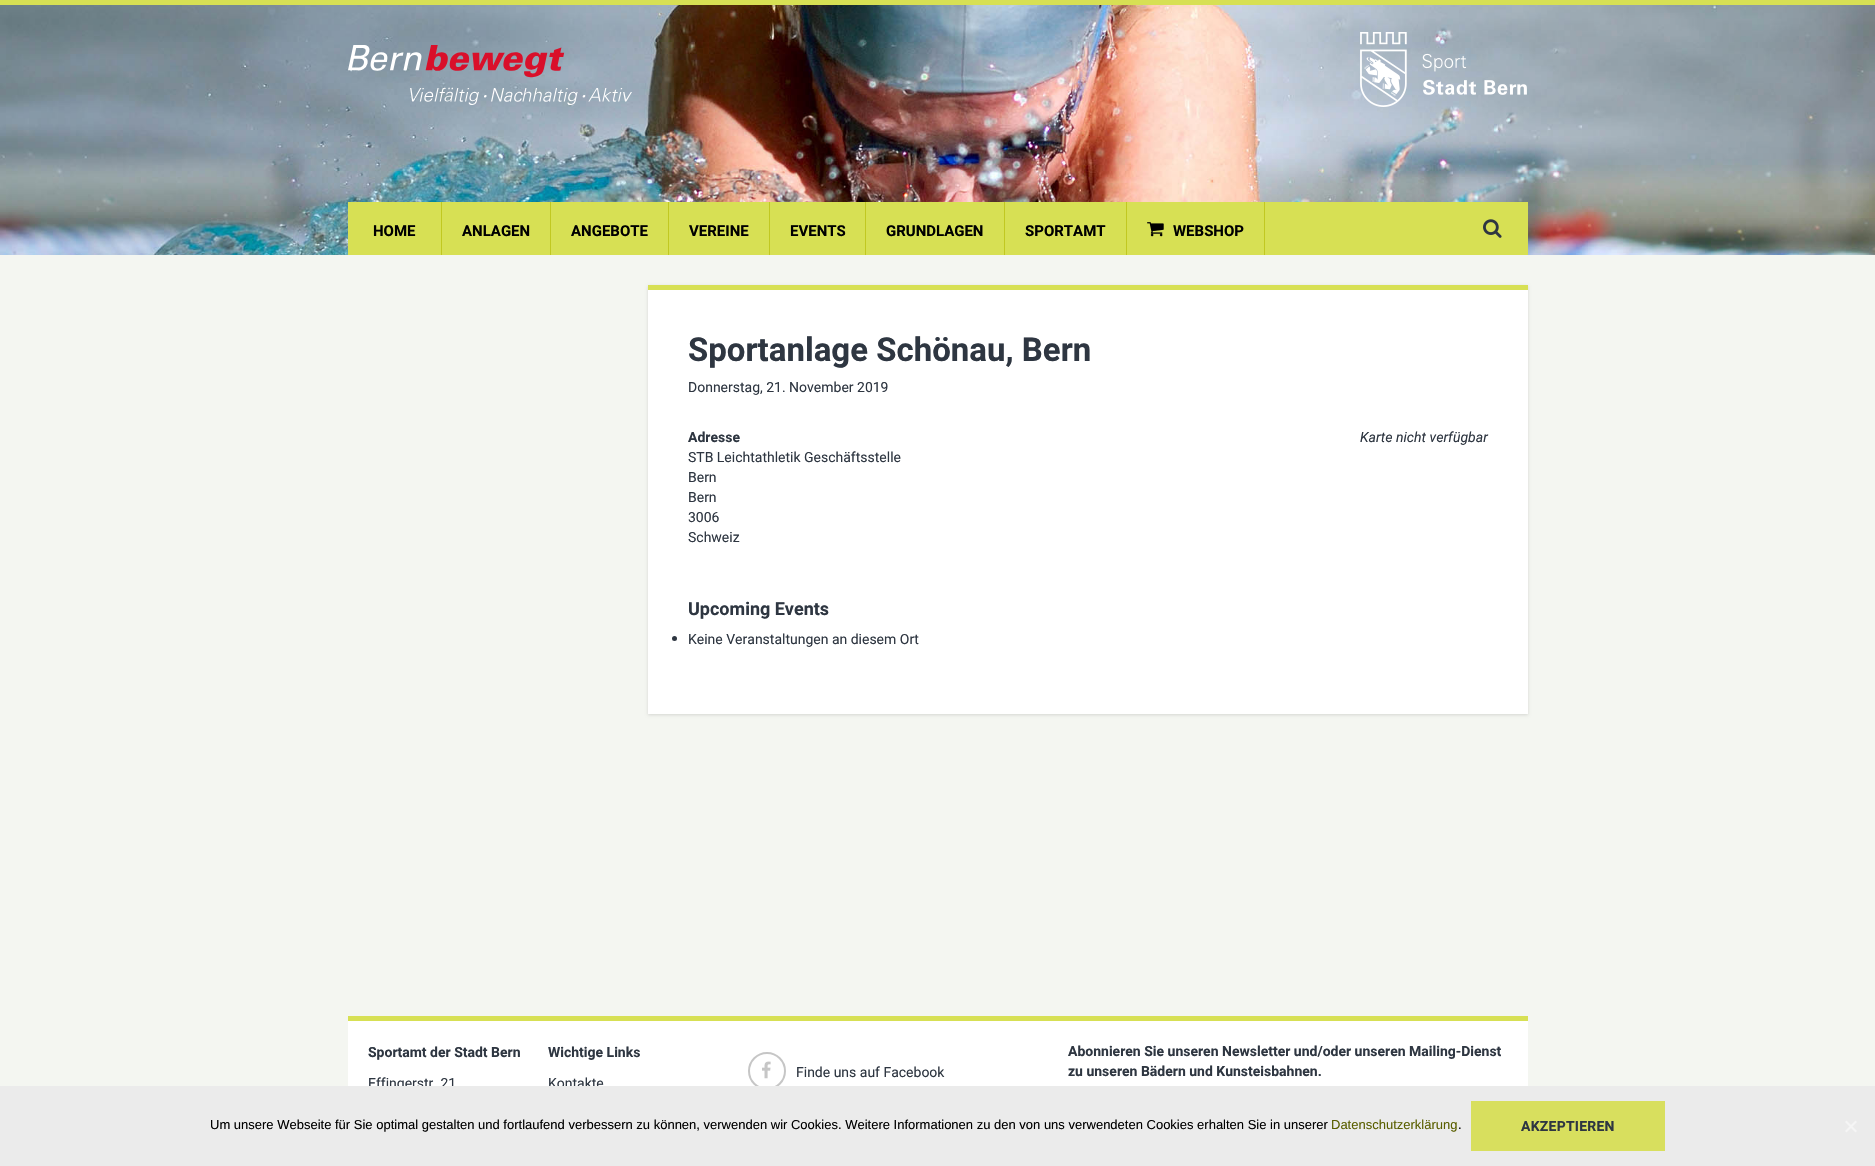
void draw(SkCanvas* canvas) {
    SkPaint paint;
    paint.setAntiAlias(true);
    auto spacedText = [&](const char* s, float x, float y, const SkFont& font, const SkPaint& ink, float letter, float word) {
        std::vector<SkGlyphID> glyphs(font.countText(s, strlen(s), SkTextEncoding::kUTF8));
        std::vector<float> xs(glyphs.size());
        font.textToGlyphs(s, strlen(s), SkTextEncoding::kUTF8, glyphs);
        font.getXPos(glyphs, xs, x);
        float extra = 0;
        for (size_t i = 0; i < glyphs.size(); i++) {
            xs[i] += extra;
            extra += letter + word * (glyphs[i] == font.unicharToGlyph(' '));
        }
        canvas->drawTextBlob(SkTextBlob::MakeFromPosHGlyphs(glyphs, xs, y, font), 0, 0, ink);
    };
    canvas->clear(0xFFF4F6F1);
    paint.setColor(0xFFD7E054);
    canvas->drawRect(SkRect::MakeXYWH(0, 0, 1875, 5), paint);
    canvas->drawImageRect(SkImages::DeferredFromEncodedData(SkData::MakeFromFileName("img3.png")), SkRect::MakeXYWH(0, 5, 1875, 250), SkSamplingOptions());
    canvas->drawImageRect(SkImages::DeferredFromEncodedData(SkData::MakeFromFileName("img1.png")), SkRect::MakeXYWH(348, 45, 284, 60), SkSamplingOptions());
    canvas->drawImageRect(SkImages::DeferredFromEncodedData(SkData::MakeFromFileName("img2.png")), SkRect::MakeXYWH(1360, 32, 167, 75), SkSamplingOptions());
    canvas->drawRect(SkRect::MakeXYWH(348, 202, 1180, 53), paint);
    paint.setColor(0xFFC1C821);
    canvas->drawRect(SkRect::MakeXYWH(441, 202, 1, 53), paint);
    SkFont font1(fontMgr->matchFamilyStyle("Roboto", SkFontStyle::Bold()), 15);
    font1.setSubpixel(true);
    paint.setColor(0xFF000000);
    canvas->drawString("HOME", 373, 236, font1, paint);
    paint.setColor(0xFFC1C821);
    canvas->drawRect(SkRect::MakeXYWH(550, 202, 1, 53), paint);
    paint.setColor(0xFF000000);
    canvas->drawString("ANLAGEN", 462, 236, font1, paint);
    paint.setColor(0xFFC1C821);
    canvas->drawRect(SkRect::MakeXYWH(668, 202, 1, 53), paint);
    paint.setColor(0xFF000000);
    canvas->drawString("ANGEBOTE", 571, 236, font1, paint);
    paint.setColor(0xFFC1C821);
    canvas->drawRect(SkRect::MakeXYWH(769, 202, 1, 53), paint);
    paint.setColor(0xFF000000);
    canvas->drawString("VEREINE", 689, 236, font1, paint);
    paint.setColor(0xFFC1C821);
    canvas->drawRect(SkRect::MakeXYWH(865, 202, 1, 53), paint);
    paint.setColor(0xFF000000);
    canvas->drawString("EVENTS", 790, 236, font1, paint);
    paint.setColor(0xFFC1C821);
    canvas->drawRect(SkRect::MakeXYWH(1004, 202, 1, 53), paint);
    paint.setColor(0xFF000000);
    canvas->drawString("GRUNDLAGEN", 886, 236, font1, paint);
    paint.setColor(0xFFC1C821);
    canvas->drawRect(SkRect::MakeXYWH(1126, 202, 1, 53), paint);
    paint.setColor(0xFF000000);
    canvas->drawString("SPORTAMT", 1025, 236, font1, paint);
    paint.setColor(0xFFC1C821);
    canvas->drawRect(SkRect::MakeXYWH(1264, 202, 1, 53), paint);
    canvas->drawImageRect(SkImages::DeferredFromEncodedData(SkData::MakeFromFileName("img4.png")), SkRect::MakeXYWH(1147, 222, 17, 15), SkSamplingOptions());
    paint.setColor(0xFF000000);
    canvas->drawString("WEBSHOP", 1173, 236, font1, paint);
    canvas->drawImageRect(SkImages::DeferredFromEncodedData(SkData::MakeFromFileName("img5.png")), SkRect::MakeXYWH(1483, 219, 19, 19), SkSamplingOptions());
    paint.setColor(0x21000000);
    paint.setMaskFilter(SkMaskFilter::MakeBlur(kNormal_SkBlurStyle, 1.5f));
    canvas->drawRect(SkRect::MakeXYWH(648, 286, 880, 429), paint);
    paint.setMaskFilter(nullptr);
    paint.setColor(0xFFFFFFFF);
    canvas->drawRect(SkRect::MakeXYWH(648, 290, 880, 424), paint);
    paint.setColor(0xFFD7E054);
    canvas->drawRect(SkRect::MakeXYWH(648, 285, 880, 5), paint);
    SkFont font2(fontMgr->matchFamilyStyle("Roboto", SkFontStyle::Bold()), 33);
    font2.setSubpixel(true);
    paint.setColor(0xFF2E3641);
    canvas->drawString("Sportanlage Schönau, Bern", 688, 361, font2, paint);
    SkFont font3(fontMgr->matchFamilyStyle("Roboto", SkFontStyle::Normal()), 14);
    font3.setSubpixel(true);
    canvas->drawString("Donnerstag, 21. November 2019", 688, 392, font3, paint);
    SkFont font4(fontMgr->matchFamilyStyle("Roboto", SkFontStyle::Bold()), 14);
    font4.setSubpixel(true);
    canvas->drawString("Adresse", 688, 442, font4, paint);
    canvas->drawString("STB Leichtathletik Geschäftsstelle", 688, 462, font3, paint);
    canvas->drawString("Bern", 688, 482, font3, paint);
    canvas->drawString("Bern", 688, 502, font3, paint);
    canvas->drawString("3006", 688, 522, font3, paint);
    canvas->drawString("Schweiz", 688, 542, font3, paint);
    SkFont font5(fontMgr->matchFamilyStyle("Roboto", SkFontStyle::Italic()), 14);
    font5.setSubpixel(true);
    canvas->drawString("Karte nicht verfügbar", 1360, 442, font5, paint);
    SkFont font6(fontMgr->matchFamilyStyle("Roboto", SkFontStyle::Bold()), 18);
    font6.setSubpixel(true);
    canvas->drawString("Upcoming Events", 688, 615, font6, paint);
    canvas->drawCircle(674.5f, 638.5f, 2.5f, paint);
    canvas->drawString("Keine Veranstaltungen an diesem Ort", 688, 644, font3, paint);
    paint.setColor(0xFFFFFFFF);
    canvas->drawRect(SkRect::MakeXYWH(348, 1021, 1180, 65), paint);
    paint.setColor(0xFFD7E054);
    canvas->drawRect(SkRect::MakeXYWH(348, 1016, 1180, 5), paint);
    paint.setColor(0xFF2E3641);
    canvas->drawString("Sportamt der Stadt Bern", 368, 1057, font4, paint);
    canvas->drawString("Effingerstr. 21", 368, 1088, font3, paint);
    canvas->drawString("Wichtige Links", 548, 1057, font4, paint);
    canvas->drawString("Kontakte", 548, 1088, font3, paint);
    paint.setStyle(SkPaint::kStroke_Style);
    paint.setStrokeWidth(2);
    paint.setColor(0xFFC6C6C6);
    canvas->drawCircle(767, 1071, 18, paint);
    canvas->drawImageRect(SkImages::DeferredFromEncodedData(SkData::MakeFromFileName("img6.png")), SkRect::MakeXYWH(762, 1061, 9, 18), SkSamplingOptions());
    paint.setStyle(SkPaint::kFill_Style);
    paint.setColor(0xFF2E3641);
    canvas->drawString("Finde uns auf Facebook", 796, 1077, font3, paint);
    canvas->drawString("Abonnieren Sie unseren Newsletter und/oder unseren Mailing-Dienst", 1068, 1056, font4, paint);
    canvas->drawString("zu unseren Bädern und Kunsteisbahnen.", 1068, 1076, font4, paint);
    paint.setColor(0xFFEBEBEB);
    canvas->drawRect(SkRect::MakeXYWH(0, 1086, 1875, 80), paint);
    SkFont font7(fontMgr->matchFamilyStyle("Liberation Sans", SkFontStyle::Normal()), 13);
    font7.setSubpixel(true);
    paint.setColor(0xFF000000);
    canvas->drawString("Um unsere Webseite für Sie optimal gestalten und fortlaufend verbessern zu können, verwenden wir Cookies. Weitere Informationen zu den von uns verwendeten Cookies erhalten Sie in unserer", 210, 1129, font7, paint);
    paint.setColor(0xFF5A5F00);
    canvas->drawString("Datenschutzerklärung", 1331, 1129, font7, paint);
    paint.setColor(0xFF000000);
    canvas->drawString(".", 1458, 1129, font7, paint);
    paint.setColor(0xFFD8DF5E);
    canvas->drawRect(SkRect::MakeXYWH(1471, 1101, 194, 50), paint);
    paint.setColor(0xFF2E3641);
    spacedText("AKZEPTIEREN", 1521, 1131, font4, paint, 0.25f, 0);
    paint.setColor(0xFFF5F5F5);
    canvas->drawPath(SkPathBuilder().moveTo(1855.5f, 1120.5f).lineTo(1857, 1122).lineTo(1846.5f, 1132.5f).lineTo(1845, 1131).close().detach(), paint);
    canvas->drawPath(SkPathBuilder().moveTo(1845, 1122).lineTo(1846.5f, 1120.5f).lineTo(1857, 1131).lineTo(1855.5f, 1132.5f).close().detach(), paint);
}
